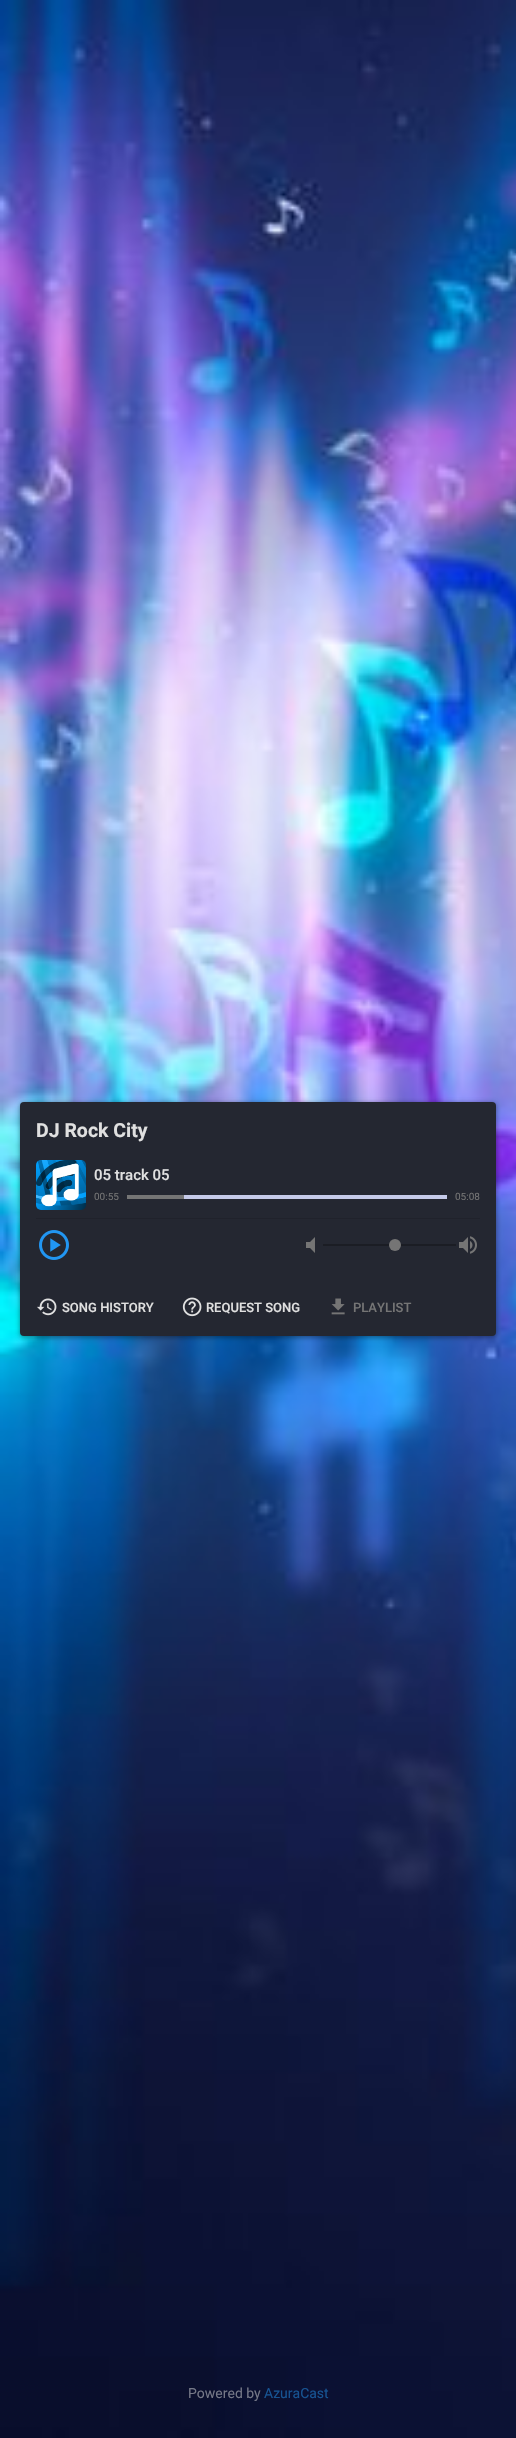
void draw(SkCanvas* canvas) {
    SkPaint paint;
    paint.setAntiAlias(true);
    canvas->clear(0xFFFFFFFF);
    canvas->drawImageRect(SkImages::DeferredFromEncodedData(SkData::MakeFromFileName("img1.png")), SkRect::MakeXYWH(0, 0, 516, 2438), SkSamplingOptions());
    paint.setColor(0x33000000);
    paint.setMaskFilter(SkMaskFilter::MakeBlur(kNormal_SkBlurStyle, 2.5f));
    canvas->drawRoundRect(SkRect::MakeXYWH(20, 1103, 476, 234), 4, 4, paint);
    paint.setMaskFilter(nullptr);
    paint.setColor(0x1F000000);
    paint.setMaskFilter(SkMaskFilter::MakeBlur(kNormal_SkBlurStyle, 2));
    canvas->drawRoundRect(SkRect::MakeXYWH(20, 1105, 476, 234), 4, 4, paint);
    paint.setMaskFilter(nullptr);
    paint.setColor(0x24000000);
    paint.setMaskFilter(SkMaskFilter::MakeBlur(kNormal_SkBlurStyle, 2));
    canvas->drawRoundRect(SkRect::MakeXYWH(20, 1102, 476, 234), 4, 4, paint);
    paint.setMaskFilter(nullptr);
    paint.setColor(0xFF242731);
    canvas->drawRoundRect(SkRect::MakeXYWH(20, 1102, 476, 234), 4, 4, paint);
    SkFont font1(fontMgr->matchFamilyStyle("Roboto", SkFontStyle::Bold()), 19.5f);
    font1.setSubpixel(true);
    paint.setColor(0xFFE0E0E0);
    canvas->drawString("DJ Rock City", 36, 1137, font1, paint);
    canvas->drawImageRect(SkImages::DeferredFromEncodedData(SkData::MakeFromFileName("img2.png")), SkRect::MakeXYWH(36, 1160, 50, 50), SkSamplingOptions());
    SkFont font2(fontMgr->matchFamilyStyle("Roboto", SkFontStyle(500, SkFontStyle::kNormal_Width, SkFontStyle::kUpright_Slant)), 15);
    font2.setSubpixel(true);
    canvas->drawString("05 track 05", 94, 1180, font2, paint);
    SkFont font3(fontMgr->matchFamilyStyle("Roboto", SkFontStyle::Normal()), 10);
    font3.setSubpixel(true);
    paint.setColor(0xFF757575);
    canvas->drawString("00:55", 94, 1200, font3, paint);
    paint.setColor(0xFFC5CAE9);
    canvas->drawRect(SkRect::MakeXYWH(184, 1195, 263, 4), paint);
    paint.setColor(0xFF757575);
    canvas->drawRect(SkRect::MakeXYWH(127, 1195, 57, 4), paint);
    canvas->drawString("05:08", 455, 1200, font3, paint);
    paint.setColor(0xFF20222B);
    canvas->drawRect(SkRect::MakeXYWH(36, 1218, 444, 1), paint);
    canvas->drawImageRect(SkImages::DeferredFromEncodedData(SkData::MakeFromFileName("img3.png")), SkRect::MakeXYWH(39, 1230, 30, 30), SkSamplingOptions());
    canvas->drawImageRect(SkImages::DeferredFromEncodedData(SkData::MakeFromFileName("img4.png")), SkRect::MakeXYWH(306, 1237, 9, 16), SkSamplingOptions());
    paint.setColor(0xFF1B1D24);
    canvas->drawRect(SkRect::MakeXYWH(323, 1244, 133, 2), paint);
    paint.setColor(0xFF757575);
    canvas->drawCircle(395, 1245, 6, paint);
    canvas->drawImageRect(SkImages::DeferredFromEncodedData(SkData::MakeFromFileName("img5.png")), SkRect::MakeXYWH(459, 1236, 18, 18), SkSamplingOptions());
    canvas->drawImageRect(SkImages::DeferredFromEncodedData(SkData::MakeFromFileName("img6.png")), SkRect::MakeXYWH(37, 1298, 20, 18), SkSamplingOptions());
    SkFont font4(fontMgr->matchFamilyStyle("Roboto", SkFontStyle(500, SkFontStyle::kNormal_Width, SkFontStyle::kUpright_Slant)), 13);
    font4.setSubpixel(true);
    paint.setColor(0xFFE0E0E0);
    canvas->drawString("SONG HISTORY", 62, 1312, font4, paint);
    canvas->drawImageRect(SkImages::DeferredFromEncodedData(SkData::MakeFromFileName("img7.png")), SkRect::MakeXYWH(182, 1297, 20, 20), SkSamplingOptions());
    canvas->drawString("REQUEST SONG", 206, 1312, font4, paint);
    canvas->drawImageRect(SkImages::DeferredFromEncodedData(SkData::MakeFromFileName("img8.png")), SkRect::MakeXYWH(331, 1298, 14, 17), SkSamplingOptions());
    paint.setColor(0xFF757575);
    canvas->drawString("PLAYLIST", 353, 1312, font4, paint);
    SkFont font5(fontMgr->matchFamilyStyle("Roboto", SkFontStyle::Normal()), 14);
    font5.setSubpixel(true);
    paint.setColor(0xFF757887);
    canvas->drawString("Powered by", 188, 2398, font5, paint);
    paint.setColor(0xFF165392);
    canvas->drawString("AzuraCast", 264, 2398, font5, paint);
}
